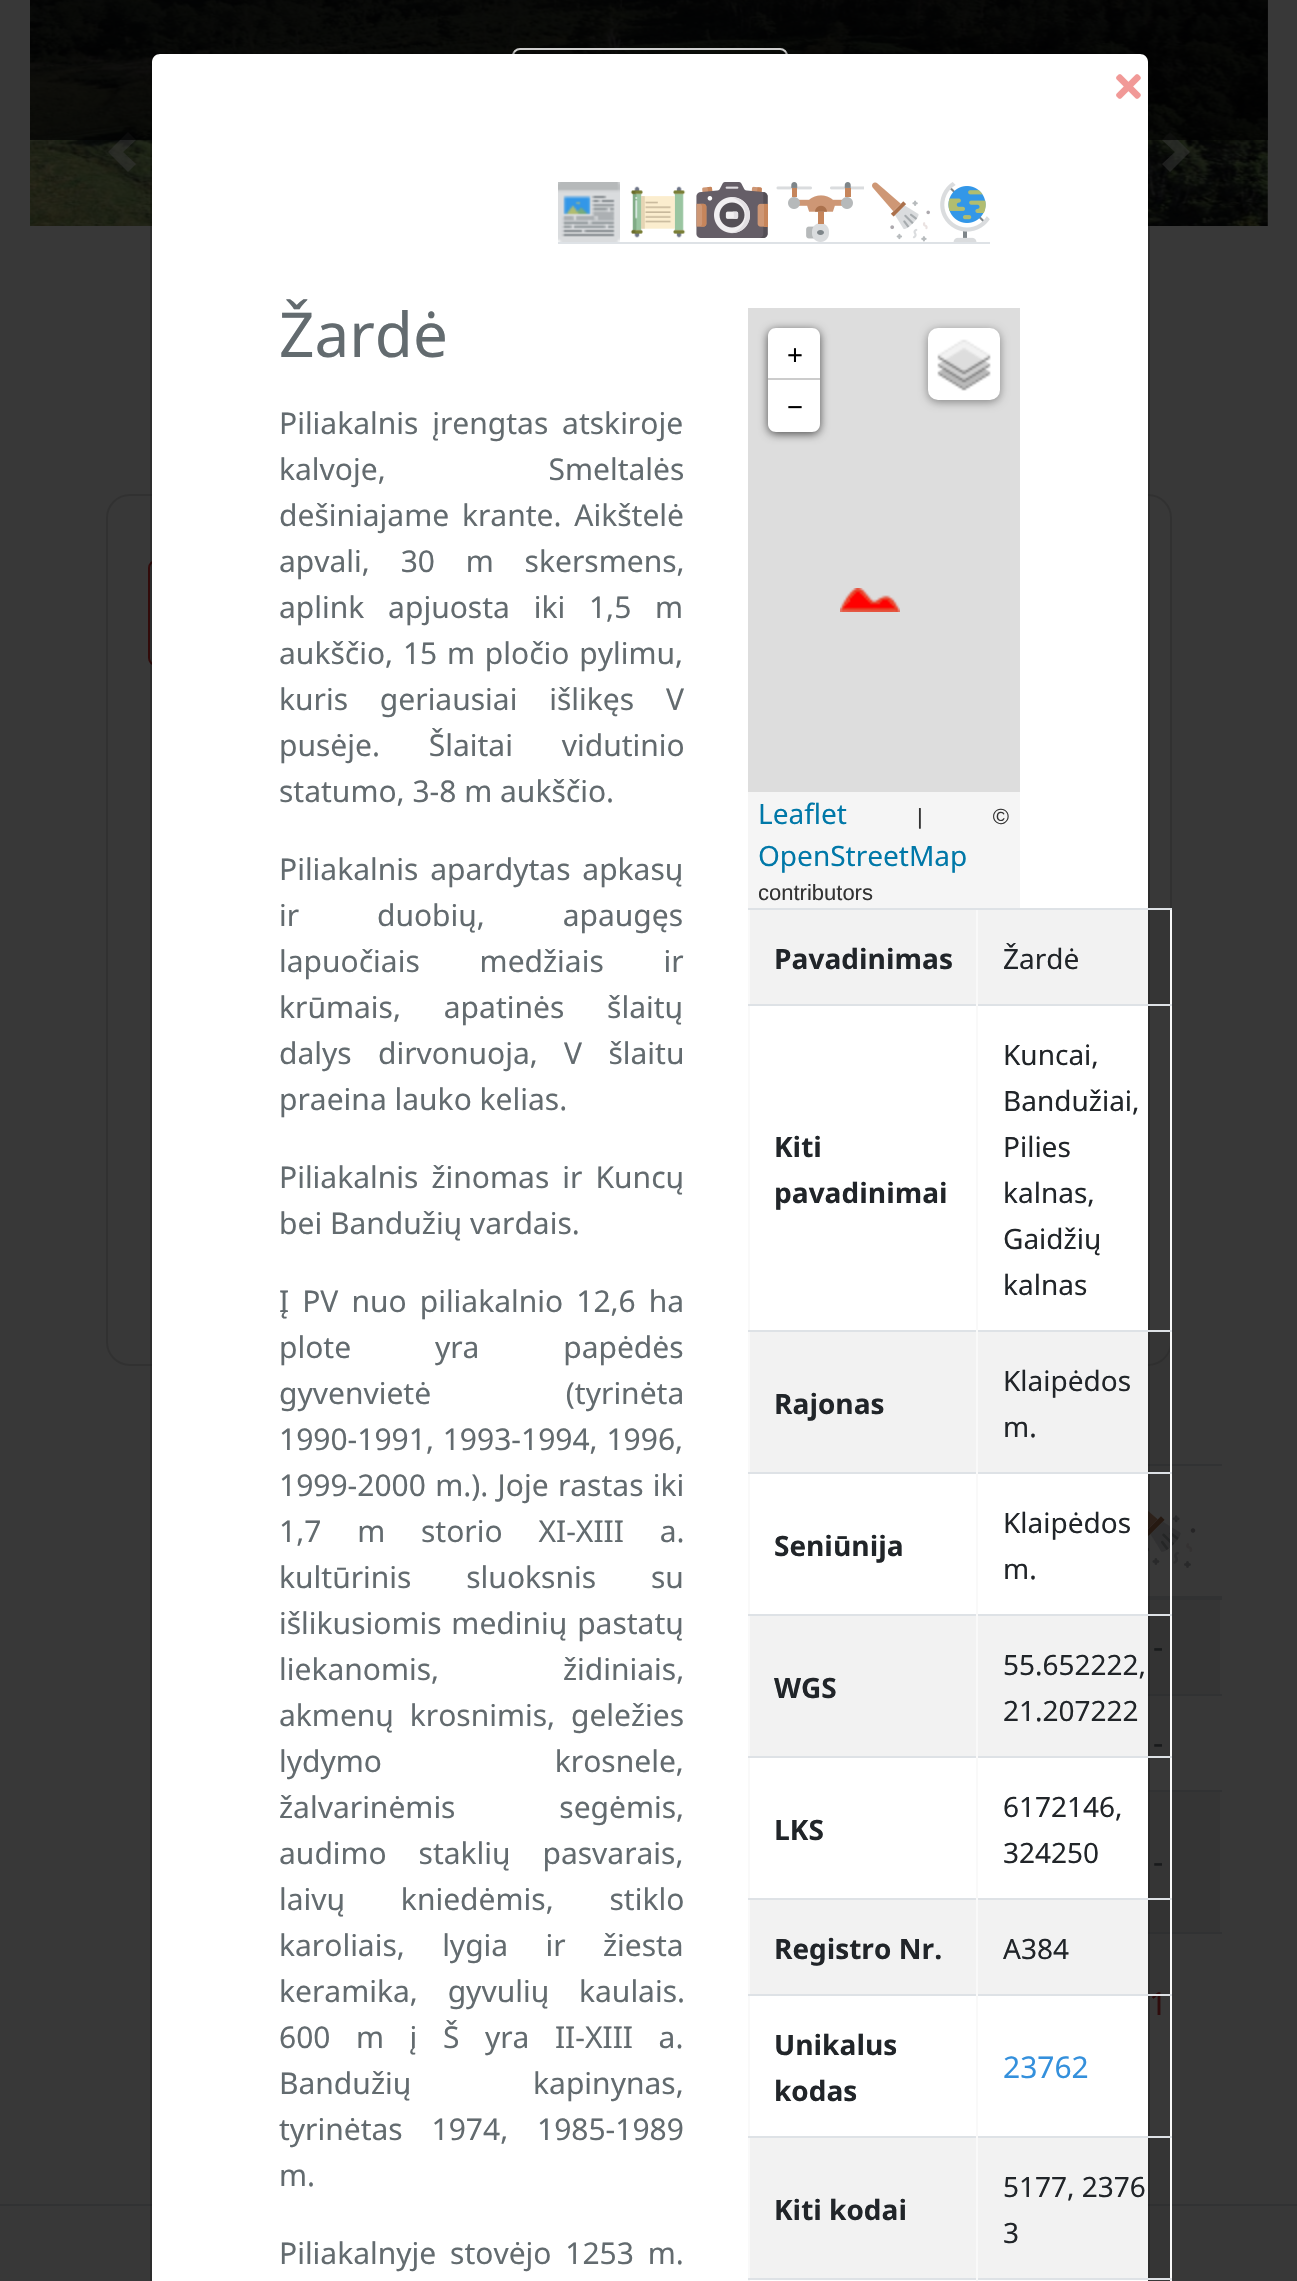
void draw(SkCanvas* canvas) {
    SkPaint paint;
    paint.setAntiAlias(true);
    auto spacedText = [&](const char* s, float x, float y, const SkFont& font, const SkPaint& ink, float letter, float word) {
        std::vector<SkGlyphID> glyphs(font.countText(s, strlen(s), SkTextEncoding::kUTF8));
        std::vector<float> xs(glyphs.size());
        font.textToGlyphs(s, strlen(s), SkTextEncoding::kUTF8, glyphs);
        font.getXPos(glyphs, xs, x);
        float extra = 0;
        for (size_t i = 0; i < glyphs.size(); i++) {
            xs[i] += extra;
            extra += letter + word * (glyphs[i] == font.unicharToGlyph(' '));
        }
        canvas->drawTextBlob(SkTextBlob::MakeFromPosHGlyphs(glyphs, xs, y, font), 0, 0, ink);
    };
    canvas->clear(0xFF383838);
    canvas->drawImageRect(SkImages::DeferredFromEncodedData(SkData::MakeFromFileName("img1.png")), SkRect::MakeXYWH(30, 0, 1238, 226), SkSamplingOptions());
    paint.setColor(0x80383838);
    canvas->drawPath(SkPathBuilder().moveTo(128, 132).lineTo(108, 152).lineTo(128, 172).lineTo(136, 164).lineTo(123, 152).lineTo(136, 140).close().detach(), paint);
    canvas->drawPath(SkPathBuilder().moveTo(1170, 132).lineTo(1162, 140).lineTo(1175, 152).lineTo(1162, 164).lineTo(1170, 172).lineTo(1190, 152).close().detach(), paint);
    paint.setColor(0xAD000000);
    canvas->drawRect(SkRect::MakeXYWH(30, 0, 1238, 140), paint);
    paint.setStyle(SkPaint::kStroke_Style);
    paint.setStrokeWidth(2);
    paint.setColor(0xCCFFFFFF);
    canvas->drawRoundRect(SkRect::MakeXYWH(513, 49, 274, 62), 7, 7, paint);
    paint.setColor(0x1F000000);
    canvas->drawRoundRect(SkRect::MakeXYWH(107, 495, 1064, 870), 23, 23, paint);
    paint.setColor(0xFF320B0A);
    canvas->drawRoundRect(SkRect::MakeXYWH(149, 561, 980, 104), 7, 7, paint);
    paint.setStyle(SkPaint::kFill_Style);
    paint.setColor(0xFF313233);
    canvas->drawRect(SkRect::MakeXYWH(0, 2204, 1297, 2), paint);
    paint.setColor(0xFFFFFFFF);
    canvas->drawPath(SkPathBuilder().moveTo(160, 54).lineTo(1140, 54).cubicTo(1144.5f, 54, 1148, 57.5f, 1148, 62).lineTo(1148, 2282).lineTo(152, 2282).lineTo(152, 62).cubicTo(152, 57.5f, 155.5f, 54, 160, 54).close().detach(), paint);
    paint.setColor(0xFF313233);
    canvas->drawRect(SkRect::MakeXYWH(1148, 1464, 74, 2), paint);
    canvas->drawRect(SkRect::MakeXYWH(1148, 1596, 74, 4), paint);
    canvas->drawImageRect(SkImages::DeferredFromEncodedData(SkData::MakeFromFileName("img11.png")), SkRect::MakeXYWH(1148, 1511, 48, 57), SkSamplingOptions());
    paint.setColor(0xFF353535);
    canvas->drawRect(SkRect::MakeXYWH(1148, 1600, 72, 94), paint);
    paint.setColor(0xFF313233);
    canvas->drawRect(SkRect::MakeXYWH(1148, 1694, 74, 2), paint);
    paint.setColor(0xFF353535);
    canvas->drawRect(SkRect::MakeXYWH(1148, 1792, 72, 140), paint);
    paint.setColor(0xFF313233);
    canvas->drawRect(SkRect::MakeXYWH(1148, 1790, 74, 2), paint);
    canvas->drawRect(SkRect::MakeXYWH(1148, 1932, 74, 2), paint);
    paint.setStyle(SkPaint::kStroke_Style);
    paint.setColor(0x33000000);
    canvas->drawRoundRect(SkRect::MakeXYWH(151, 53, 998, 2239), 9, 9, paint);
    canvas->drawImageRect(SkImages::DeferredFromEncodedData(SkData::MakeFromFileName("img2.png")), SkRect::MakeXYWH(1116, 74, 25, 25), SkSamplingOptions());
    paint.setStyle(SkPaint::kFill_Style);
    paint.setColor(0xFFDEE2E6);
    canvas->drawRect(SkRect::MakeXYWH(558, 242, 432, 2), paint);
    canvas->drawImageRect(SkImages::DeferredFromEncodedData(SkData::MakeFromFileName("img3.png")), SkRect::MakeXYWH(558, 182, 62, 60), SkSamplingOptions());
    canvas->drawImageRect(SkImages::DeferredFromEncodedData(SkData::MakeFromFileName("img4.png")), SkRect::MakeXYWH(630, 186, 56, 52), SkSamplingOptions());
    canvas->drawImageRect(SkImages::DeferredFromEncodedData(SkData::MakeFromFileName("img5.png")), SkRect::MakeXYWH(696, 182, 72, 56), SkSamplingOptions());
    canvas->drawImageRect(SkImages::DeferredFromEncodedData(SkData::MakeFromFileName("img6.png")), SkRect::MakeXYWH(776, 182, 88, 60), SkSamplingOptions());
    canvas->drawImageRect(SkImages::DeferredFromEncodedData(SkData::MakeFromFileName("img7.png")), SkRect::MakeXYWH(872, 182, 58, 60), SkSamplingOptions());
    canvas->drawImageRect(SkImages::DeferredFromEncodedData(SkData::MakeFromFileName("img8.png")), SkRect::MakeXYWH(940, 182, 50, 60), SkSamplingOptions());
    SkFont font1(fontMgr->matchFamilyStyle("Noto Sans", SkFontStyle::Normal()), 62);
    font1.setSubpixel(true);
    paint.setColor(0xFF636B6F);
    canvas->drawString("Žardė", 279, 357, font1, paint);
    SkFont font2(fontMgr->matchFamilyStyle("Noto Sans", SkFontStyle::Normal()), 30);
    font2.setSubpixel(true);
    spacedText("Piliakalnis įrengtas atskiroje", 279, 434, font2, paint, 0, 6);
    spacedText("kalvoje, Smeltalės", 279, 480, font2, paint, 0, 155);
    spacedText("dešiniajame krante. Aikštelė", 279, 526, font2, paint, 0, 5);
    spacedText("apvali, 30 m skersmens,", 279, 572, font2, paint, 0, 23);
    spacedText("aplink apjuosta iki 1,5 m", 279, 618, font2, paint, 0, 16);
    spacedText("aukščio, 15 m pločio pylimu,", 279, 664, font2, paint, 0, 2);
    spacedText("kuris geriausiai išlikęs V", 279, 710, font2, paint, 0, 24);
    spacedText("pusėje. Šlaitai vidutinio", 279, 756, font2, paint, 0, 41);
    canvas->drawString("statumo, 3-8 m aukščio.", 279, 802, font2, paint);
    spacedText("Piliakalnis apardytas apkasų", 279, 880, font2, paint, 0, 4);
    spacedText("ir duobių, apaugęs", 279, 926, font2, paint, 0, 70);
    spacedText("lapuočiais medžiais ir", 279, 972, font2, paint, 0, 52);
    spacedText("krūmais, apatinės šlaitų", 279, 1018, font2, paint, 0, 35);
    spacedText("dalys dirvonuoja, V šlaitu", 279, 1064, font2, paint, 0, 18.5f);
    canvas->drawString("praeina lauko kelias.", 279, 1110, font2, paint);
    spacedText("Piliakalnis žinomas ir Kuncų", 279, 1188, font2, paint, 0, 5.25f);
    canvas->drawString("bei Bandužių vardais.", 279, 1234, font2, paint);
    spacedText("Į PV nuo piliakalnio 12,6 ha", 279, 1312, font2, paint, 0, 5.25f);
    spacedText("plote yra papėdės", 279, 1358, font2, paint, 0, 76);
    spacedText("gyvenvietė (tyrinėta", 279, 1404, font2, paint, 0, 127);
    spacedText("1990-1991, 1993-1994, 1996,", 279, 1450, font2, paint, 0, 1);
    spacedText("1999-2000 m.). Joje rastas iki", 279, 1496, font2, paint, 0, 1.5f);
    spacedText("1,7 m storio XI-XIII a.", 279, 1542, font2, paint, 0, 28);
    spacedText("kultūrinis sluoksnis su", 279, 1588, font2, paint, 0, 47);
    spacedText("išlikusiomis medinių pastatų", 279, 1634, font2, paint, 0, 2);
    spacedText("liekanomis, židiniais,", 279, 1680, font2, paint, 0, 116);
    spacedText("akmenų krosnimis, geležies", 279, 1726, font2, paint, 0, 8);
    spacedText("lydymo krosnele,", 279, 1772, font2, paint, 0, 165);
    spacedText("žalvarinėmis segėmis,", 279, 1818, font2, paint, 0, 96);
    spacedText("audimo staklių pasvarais,", 279, 1864, font2, paint, 0, 24);
    spacedText("laivų kniedėmis, stiklo", 279, 1910, font2, paint, 0, 48);
    spacedText("karoliais, lygia ir žiesta", 279, 1956, font2, paint, 0, 29.5f);
    spacedText("keramika, gyvulių kaulais.", 279, 2002, font2, paint, 0, 22);
    spacedText("600 m į Š yra II-XIII a.", 279, 2048, font2, paint, 0, 17.75f);
    spacedText("Bandužių kapinynas,", 279, 2094, font2, paint, 0, 114);
    spacedText("tyrinėtas 1974, 1985-1989", 279, 2140, font2, paint, 0, 21);
    canvas->drawString("m.", 279, 2186, font2, paint);
    spacedText("Piliakalnyje stovėjo 1253 m.", 279, 2264, font2, paint, 0, 6);
    paint.setColor(0xFFDDDDDD);
    canvas->drawRect(SkRect::MakeXYWH(748, 308, 272, 484), paint);
    paint.setColor(0xA6000000);
    paint.setMaskFilter(SkMaskFilter::MakeBlur(kNormal_SkBlurStyle, 5));
    canvas->drawRoundRect(SkRect::MakeXYWH(768, 330, 52, 104), 8, 8, paint);
    paint.setMaskFilter(nullptr);
    paint.setColor(0xFFFFFFFF);
    canvas->drawPath(SkPathBuilder().moveTo(776, 328).lineTo(812, 328).cubicTo(816.5f, 328, 820, 331.5f, 820, 336).lineTo(820, 380).lineTo(768, 380).lineTo(768, 336).cubicTo(768, 331.5f, 771.5f, 328, 776, 328).close().detach(), paint);
    paint.setColor(0xFFCCCCCC);
    canvas->drawRect(SkRect::MakeXYWH(768, 378, 52, 2), paint);
    SkFont font3(fontMgr->matchFamilyStyle("Noto Sans", SkFontStyle::Normal()), 28);
    font3.setSubpixel(true);
    paint.setColor(0xFF000000);
    canvas->drawString("+", 787, 365, font3, paint);
    paint.setColor(0xFFFFFFFF);
    canvas->drawPath(SkPathBuilder().moveTo(768, 380).lineTo(820, 380).lineTo(820, 424).cubicTo(820, 428.5f, 816.5f, 432, 812, 432).lineTo(776, 432).cubicTo(771.5f, 432, 768, 428.5f, 768, 424).close().detach(), paint);
    paint.setColor(0xFF000000);
    canvas->drawString("−", 787, 417, font3, paint);
    paint.setColor(0x66000000);
    paint.setMaskFilter(SkMaskFilter::MakeBlur(kNormal_SkBlurStyle, 5));
    canvas->drawRoundRect(SkRect::MakeXYWH(928, 330, 72, 72), 10, 10, paint);
    paint.setMaskFilter(nullptr);
    paint.setColor(0xFFFFFFFF);
    canvas->drawRoundRect(SkRect::MakeXYWH(928, 328, 72, 72), 10, 10, paint);
    canvas->drawImageRect(SkImages::DeferredFromEncodedData(SkData::MakeFromFileName("img9.png")), SkRect::MakeXYWH(937, 339, 54, 52), SkSamplingOptions());
    paint.setColor(0xFFF5F5F5);
    canvas->drawRect(SkRect::MakeXYWH(748, 792, 272, 116), paint);
    paint.setColor(0xFF0078A8);
    canvas->drawString("Leaflet", 758, 824, font3, paint);
    SkFont font4(fontMgr->matchFamilyStyle("Liberation Sans", SkFontStyle::Normal()), 22);
    font4.setSubpixel(true);
    paint.setColor(0xFF333333);
    spacedText("| ©", 917, 824, font4, paint, 0, 64);
    paint.setColor(0xFF0078A8);
    canvas->drawString("OpenStreetMap", 758, 866, font3, paint);
    paint.setColor(0xFF333333);
    canvas->drawString("contributors", 758, 900, font4, paint);
    canvas->drawImageRect(SkImages::DeferredFromEncodedData(SkData::MakeFromFileName("img10.png")), SkRect::MakeXYWH(840, 588, 60, 24), SkSamplingOptions());
    paint.setColor(0xFFF9F9F9);
    canvas->drawRect(SkRect::MakeXYWH(1170, 908, 2, 1373), paint);
    canvas->drawRect(SkRect::MakeXYWH(748, 908, 2, 1373), paint);
    paint.setColor(0x0D000000);
    canvas->drawRect(SkRect::MakeXYWH(750, 910, 420, 94), paint);
    paint.setColor(0xFFDEE2E6);
    canvas->drawRect(SkRect::MakeXYWH(976, 908, 196, 2), paint);
    canvas->drawRect(SkRect::MakeXYWH(976, 1004, 196, 2), paint);
    canvas->drawRect(SkRect::MakeXYWH(976, 1330, 196, 2), paint);
    paint.setColor(0x0D000000);
    canvas->drawRect(SkRect::MakeXYWH(750, 1332, 420, 140), paint);
    paint.setColor(0xFFDEE2E6);
    canvas->drawRect(SkRect::MakeXYWH(976, 1472, 196, 2), paint);
    canvas->drawRect(SkRect::MakeXYWH(976, 1614, 196, 2), paint);
    paint.setColor(0x0D000000);
    canvas->drawRect(SkRect::MakeXYWH(750, 1616, 420, 140), paint);
    paint.setColor(0xFFDEE2E6);
    canvas->drawRect(SkRect::MakeXYWH(976, 1756, 196, 2), paint);
    canvas->drawRect(SkRect::MakeXYWH(976, 1898, 196, 2), paint);
    paint.setColor(0x0D000000);
    canvas->drawRect(SkRect::MakeXYWH(750, 1900, 420, 94), paint);
    SkFont font5(fontMgr->matchFamilyStyle("Noto Sans", SkFontStyle::Normal()), 32);
    font5.setSubpixel(true);
    paint.setColor(0xFF2E0C0C);
    canvas->drawString("1", 1149, 2015, font5, paint);
    paint.setColor(0xFFDEE2E6);
    canvas->drawRect(SkRect::MakeXYWH(976, 1994, 196, 2), paint);
    canvas->drawRect(SkRect::MakeXYWH(976, 2136, 196, 2), paint);
    paint.setColor(0x0D000000);
    canvas->drawRect(SkRect::MakeXYWH(750, 2138, 420, 140), paint);
    paint.setColor(0xFFDEE2E6);
    canvas->drawRect(SkRect::MakeXYWH(976, 2278, 196, 2), paint);
    paint.setColor(0xFFF9F9F9);
    canvas->drawRect(SkRect::MakeXYWH(976, 2278, 2, 3), paint);
    paint.setColor(0xFFDEE2E6);
    canvas->drawRect(SkRect::MakeXYWH(748, 2278, 230, 2), paint);
    paint.setColor(0xFFF9F9F9);
    canvas->drawRect(SkRect::MakeXYWH(976, 2136, 2, 144), paint);
    paint.setColor(0xFFDEE2E6);
    canvas->drawRect(SkRect::MakeXYWH(748, 2136, 230, 2), paint);
    paint.setColor(0xFFF9F9F9);
    canvas->drawRect(SkRect::MakeXYWH(976, 1994, 2, 144), paint);
    paint.setColor(0xFFDEE2E6);
    canvas->drawRect(SkRect::MakeXYWH(748, 1994, 230, 2), paint);
    paint.setColor(0xFFF9F9F9);
    canvas->drawRect(SkRect::MakeXYWH(976, 1898, 2, 98), paint);
    paint.setColor(0xFFDEE2E6);
    canvas->drawRect(SkRect::MakeXYWH(748, 1898, 230, 2), paint);
    paint.setColor(0xFFF9F9F9);
    canvas->drawRect(SkRect::MakeXYWH(976, 1756, 2, 144), paint);
    paint.setColor(0xFFDEE2E6);
    canvas->drawRect(SkRect::MakeXYWH(748, 1756, 230, 2), paint);
    paint.setColor(0xFFF9F9F9);
    canvas->drawRect(SkRect::MakeXYWH(976, 1614, 2, 144), paint);
    paint.setColor(0xFFDEE2E6);
    canvas->drawRect(SkRect::MakeXYWH(748, 1614, 230, 2), paint);
    paint.setColor(0xFFF9F9F9);
    canvas->drawRect(SkRect::MakeXYWH(976, 1472, 2, 144), paint);
    paint.setColor(0xFFDEE2E6);
    canvas->drawRect(SkRect::MakeXYWH(748, 1472, 230, 2), paint);
    paint.setColor(0xFFF9F9F9);
    canvas->drawRect(SkRect::MakeXYWH(976, 1330, 2, 144), paint);
    paint.setColor(0xFFDEE2E6);
    canvas->drawRect(SkRect::MakeXYWH(748, 1330, 230, 2), paint);
    paint.setColor(0xFFF9F9F9);
    canvas->drawRect(SkRect::MakeXYWH(976, 1004, 2, 328), paint);
    paint.setColor(0xFFDEE2E6);
    canvas->drawRect(SkRect::MakeXYWH(748, 1004, 230, 2), paint);
    paint.setColor(0xFFF9F9F9);
    canvas->drawRect(SkRect::MakeXYWH(976, 908, 2, 98), paint);
    paint.setColor(0xFFDEE2E6);
    canvas->drawRect(SkRect::MakeXYWH(748, 908, 230, 2), paint);
    SkFont font6(fontMgr->matchFamilyStyle("Noto Sans", SkFontStyle::Bold()), 28);
    font6.setSubpixel(true);
    paint.setColor(0xFF212529);
    canvas->drawString("Pavadinimas", 774, 969, font6, paint);
    canvas->drawString("Žardė", 1003, 969, font3, paint);
    canvas->drawString("Kiti", 774, 1157, font6, paint);
    canvas->drawString("pavadinimai", 774, 1203, font6, paint);
    canvas->drawString("Kuncai,", 1003, 1065, font3, paint);
    canvas->drawString("Bandužiai,", 1003, 1111, font3, paint);
    canvas->drawString("Pilies", 1003, 1157, font3, paint);
    canvas->drawString("kalnas,", 1003, 1203, font3, paint);
    canvas->drawString("Gaidžių", 1003, 1249, font3, paint);
    canvas->drawString("kalnas", 1003, 1295, font3, paint);
    canvas->drawString("Rajonas", 774, 1414, font6, paint);
    canvas->drawString("Klaipėdos", 1003, 1391, font3, paint);
    canvas->drawString("m.", 1003, 1437, font3, paint);
    canvas->drawString("Seniūnija", 774, 1556, font6, paint);
    canvas->drawString("Klaipėdos", 1003, 1533, font3, paint);
    canvas->drawString("m.", 1003, 1579, font3, paint);
    canvas->drawString("WGS", 774, 1698, font6, paint);
    canvas->drawString("55.652222,", 1003, 1675, font3, paint);
    canvas->drawString("21.207222", 1003, 1721, font3, paint);
    canvas->drawString("LKS", 774, 1840, font6, paint);
    canvas->drawString("6172146,", 1003, 1817, font3, paint);
    canvas->drawString("324250", 1003, 1863, font3, paint);
    canvas->drawString("Registro Nr.", 774, 1959, font6, paint);
    canvas->drawString("A384", 1003, 1959, font3, paint);
    canvas->drawString("Unikalus", 774, 2055, font6, paint);
    canvas->drawString("kodas", 774, 2101, font6, paint);
    paint.setColor(0xFF3490DC);
    canvas->drawString("23762", 1003, 2078, font2, paint);
    paint.setColor(0xFF212529);
    canvas->drawString("Kiti kodai", 774, 2220, font6, paint);
    canvas->drawString("5177, 2376", 1003, 2197, font3, paint);
    canvas->drawString("3", 1003, 2243, font3, paint);
    paint.setColor(0xFF181A1B);
    canvas->drawString("-", 1153, 1658, font5, paint);
    canvas->drawString("-", 1153, 1754, font5, paint);
    canvas->drawString("-", 1153, 1873, font5, paint);
}
